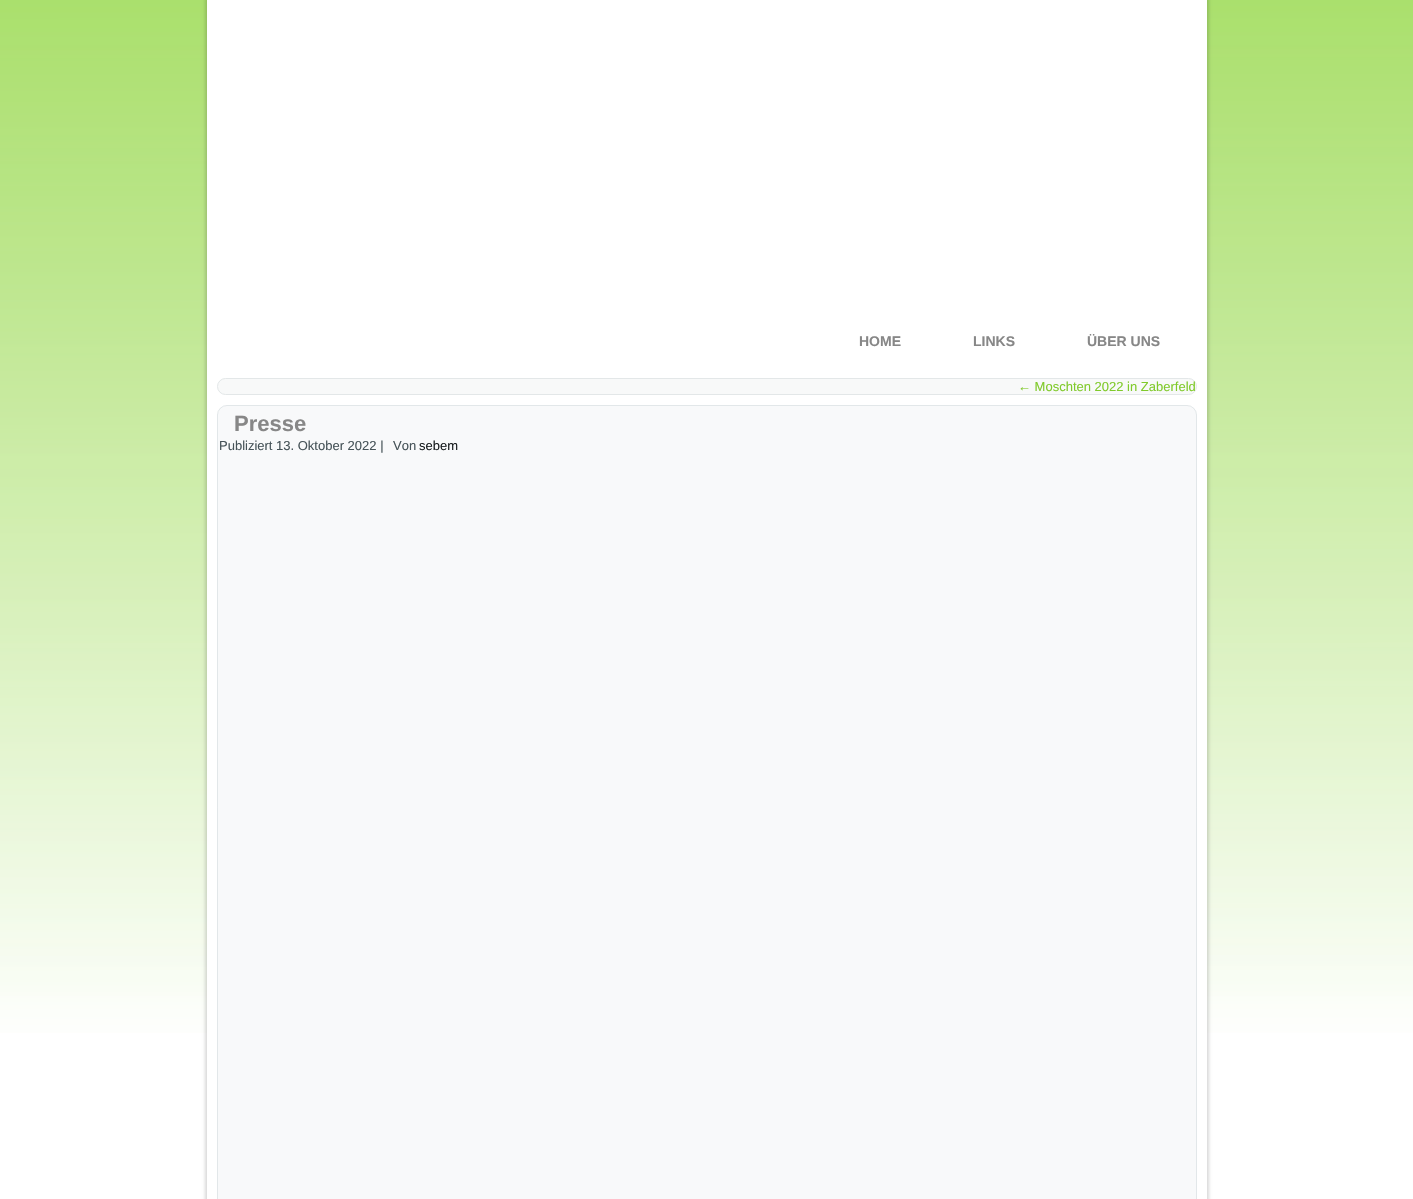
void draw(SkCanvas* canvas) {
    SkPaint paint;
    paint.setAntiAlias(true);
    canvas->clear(0xFFFFFFFF);
    {
        const SkColor colors[] = {0xFFB1E278, 0xFFFFFFFF};
        const float stops[] = {0, 0.59f};
        const SkPoint ends[] = {{706, 0}, {707, 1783}};
        paint.setShader(SkGradientShader::MakeLinear(ends, colors, stops, 2, SkTileMode::kClamp));
        paint.setAlpha(255);
    }
    canvas->drawRect(SkRect::MakeXYWH(0, 0, 1413, 1033), paint);
    {
        const SkColor colors[] = {0x2B8AD435, 0x7DFFFFFF};
        const float stops[] = {0, 0.59f};
        const SkPoint ends[] = {{706, 0}, {707, 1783}};
        paint.setShader(SkGradientShader::MakeLinear(ends, colors, stops, 2, SkTileMode::kClamp));
        paint.setAlpha(255);
    }
    canvas->drawRect(SkRect::MakeXYWH(0, 0, 1413, 996), paint);
    paint.setShader(nullptr);
    paint.setColor(0x26000000);
    paint.setMaskFilter(SkMaskFilter::MakeBlur(kNormal_SkBlurStyle, 1.5f));
    canvas->drawRect(SkRect::MakeXYWH(205, -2, 1004, 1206), paint);
    paint.setMaskFilter(nullptr);
    paint.setColor(0xFFFFFFFF);
    canvas->drawRect(SkRect::MakeXYWH(207, 0, 1000, 1199), paint);
    SkFont font1(fontMgr->matchFamilyStyle("Liberation Sans", SkFontStyle::Bold()), 14);
    font1.setSubpixel(true);
    paint.setColor(0xFF878787);
    canvas->drawString("HOME", 859, 346, font1, paint);
    canvas->drawString("LINKS", 973, 346, font1, paint);
    canvas->drawString("ÜBER UNS", 1087, 346, font1, paint);
    paint.setColor(0xFFF8F9F9);
    canvas->drawRoundRect(SkRect::MakeXYWH(217.5f, 378.5f, 979, 16), 8, 8, paint);
    paint.setStyle(SkPaint::kStroke_Style);
    paint.setStrokeWidth(1);
    paint.setColor(0xFFE3E7E8);
    canvas->drawRoundRect(SkRect::MakeXYWH(217.5f, 378.5f, 979, 16), 8, 8, paint);
    SkFont font2(fontMgr->matchFamilyStyle("Liberation Sans", SkFontStyle::Normal()), 13);
    font2.setSubpixel(true);
    paint.setStyle(SkPaint::kFill_Style);
    paint.setColor(0xFF80CA2B);
    canvas->drawString("← Moschten 2022 in Zaberfeld", 1018, 391, font2, paint);
    paint.setColor(0xFFF8F9FA);
    canvas->drawRoundRect(SkRect::MakeXYWH(217, 405, 980, 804), 10, 10, paint);
    paint.setStyle(SkPaint::kStroke_Style);
    paint.setColor(0x338E9EA4);
    canvas->drawRoundRect(SkRect::MakeXYWH(217.5f, 405.5f, 979, 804), 9.5f, 9.5f, paint);
    SkFont font3(fontMgr->matchFamilyStyle("Liberation Sans", SkFontStyle::Bold()), 22);
    font3.setSubpixel(true);
    paint.setStyle(SkPaint::kFill_Style);
    paint.setColor(0xFF878787);
    canvas->drawString("Presse", 234, 431, font3, paint);
    paint.setColor(0xFF465358);
    canvas->drawString("Publiziert 13. Oktober 2022 |", 219, 450, font2, paint);
    canvas->drawString("Von", 393, 450, font2, paint);
    paint.setColor(0xFF191D1F);
    canvas->drawString("sebem", 419, 450, font2, paint);
}
